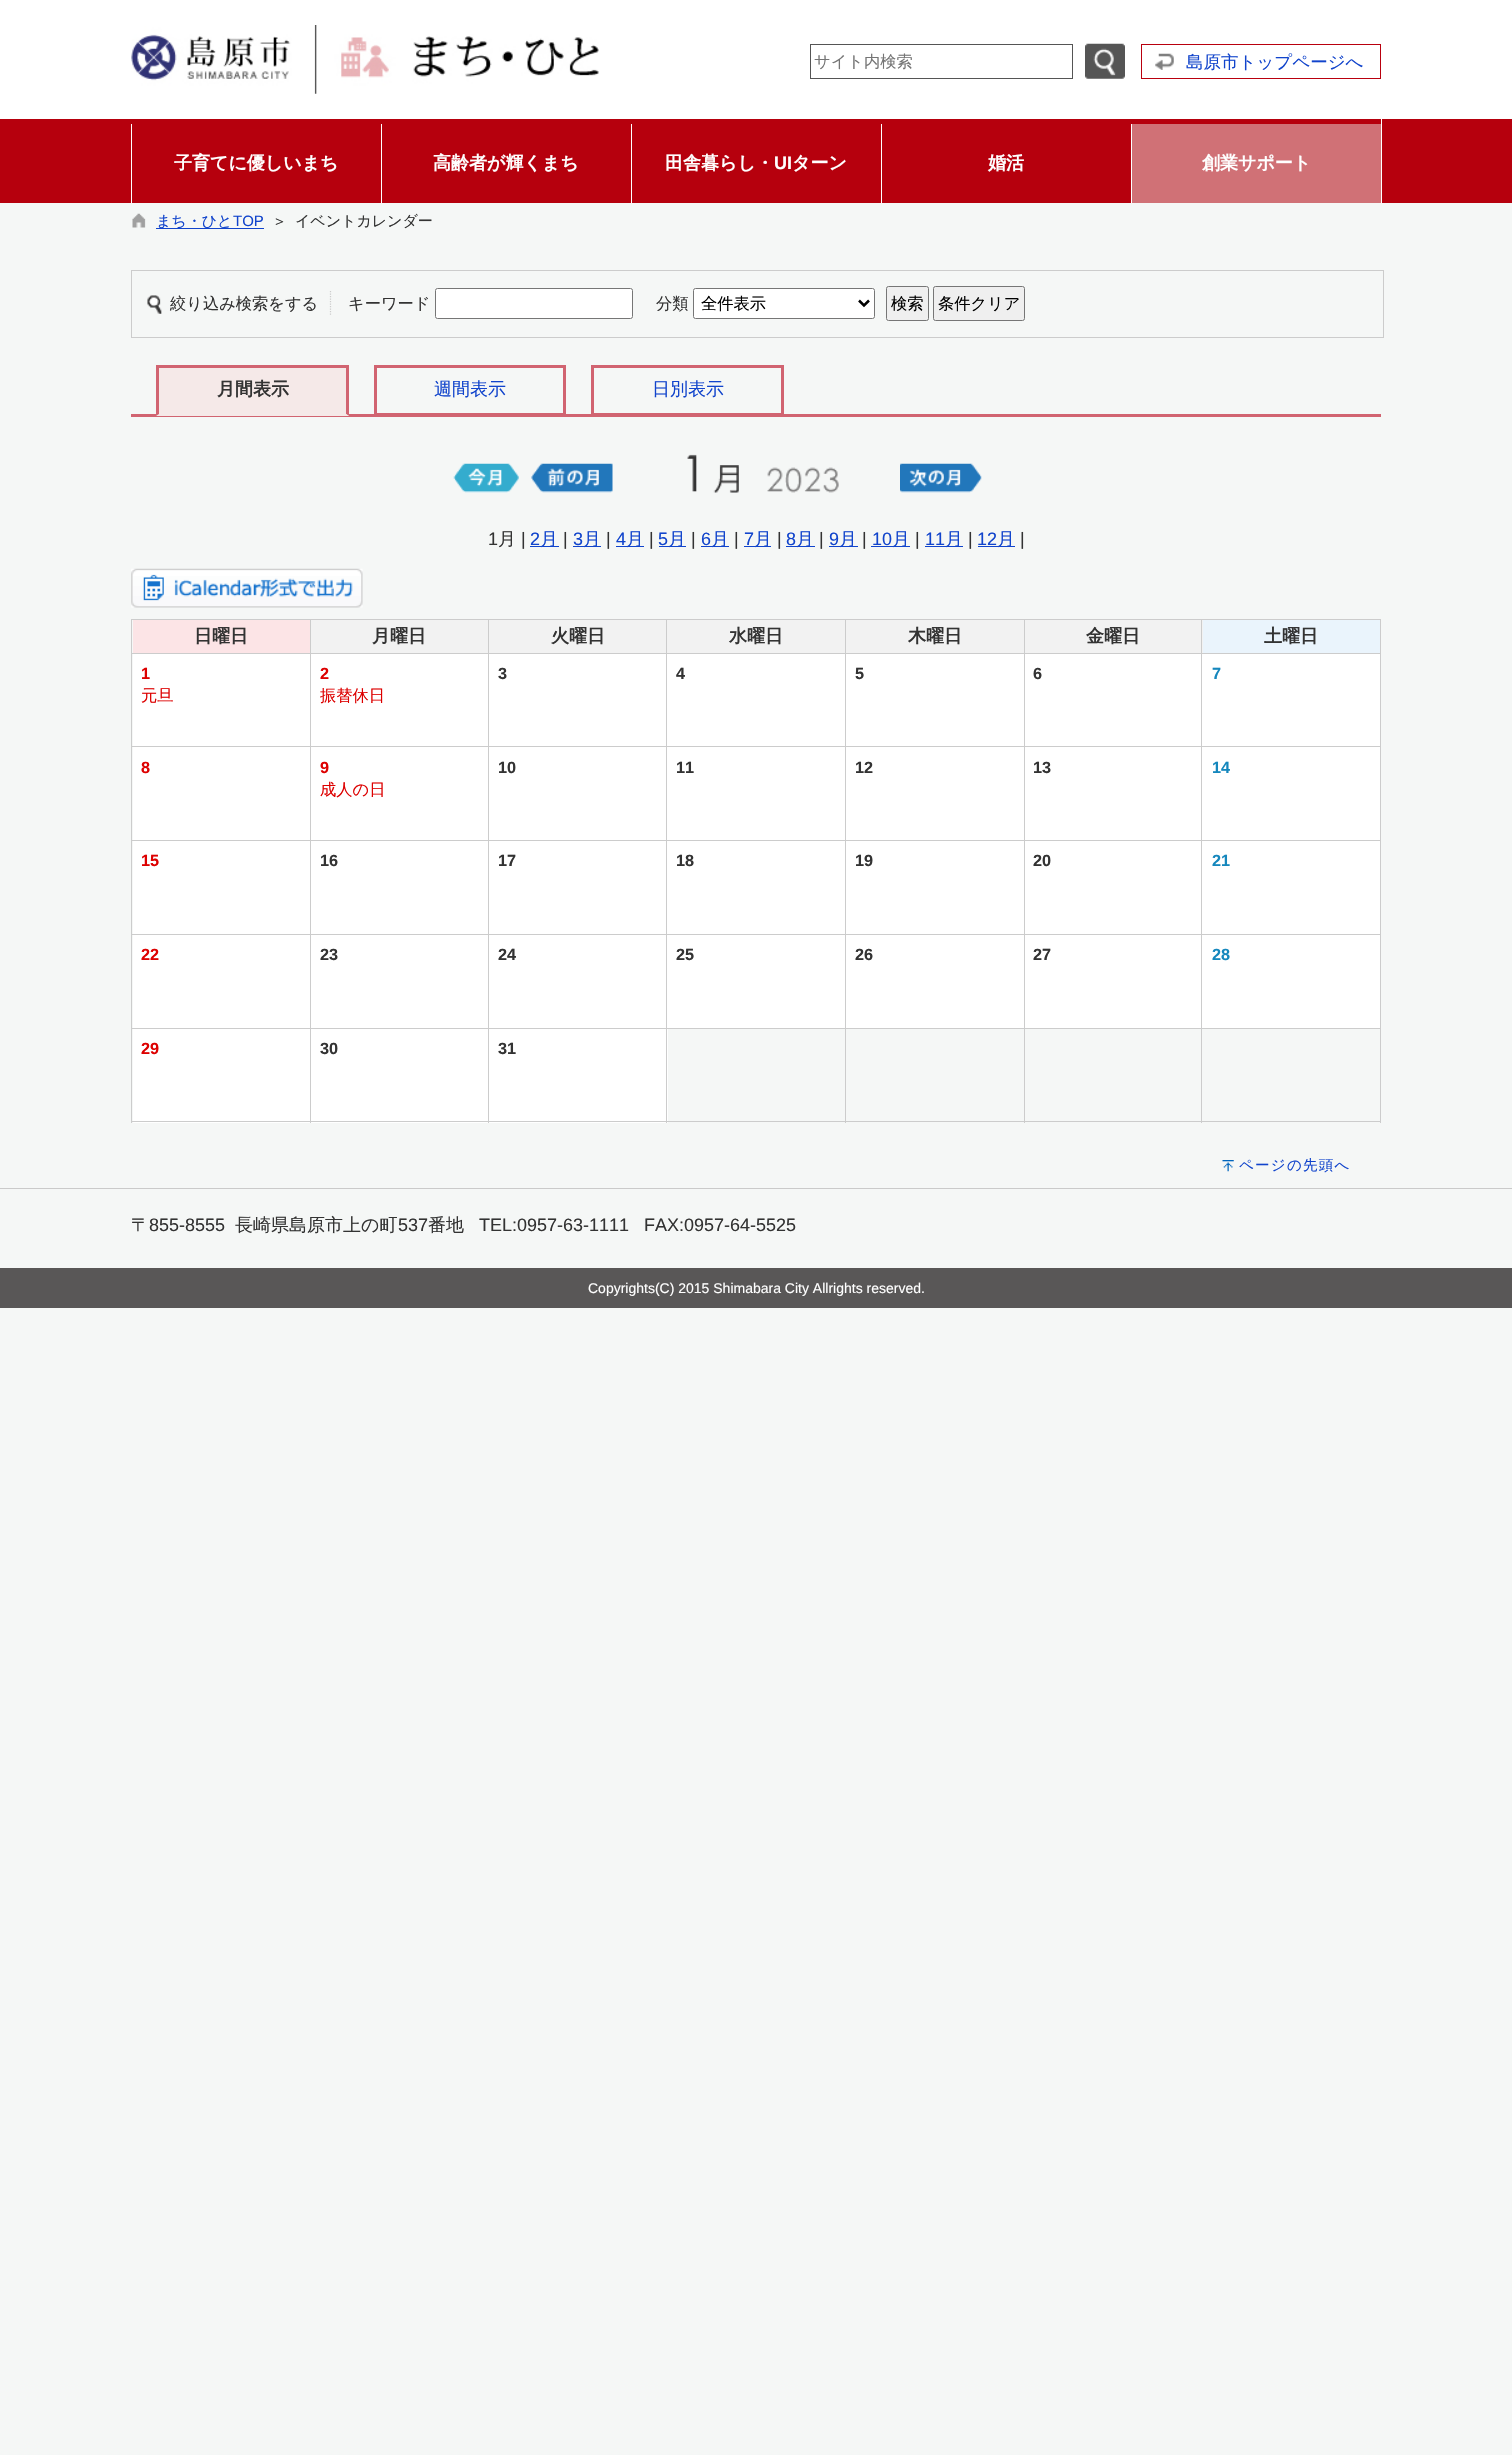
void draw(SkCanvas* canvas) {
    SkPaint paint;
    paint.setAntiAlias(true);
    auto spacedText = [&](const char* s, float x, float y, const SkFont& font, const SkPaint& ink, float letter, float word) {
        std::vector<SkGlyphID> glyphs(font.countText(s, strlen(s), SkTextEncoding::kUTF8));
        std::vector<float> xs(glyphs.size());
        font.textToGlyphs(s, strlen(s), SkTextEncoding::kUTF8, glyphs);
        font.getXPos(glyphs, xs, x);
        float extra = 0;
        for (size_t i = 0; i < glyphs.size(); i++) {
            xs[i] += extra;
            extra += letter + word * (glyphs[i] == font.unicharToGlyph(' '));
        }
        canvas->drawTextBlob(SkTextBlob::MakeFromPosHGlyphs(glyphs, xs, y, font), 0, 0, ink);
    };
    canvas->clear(0xFFF5F7F6);
    paint.setColor(0xFFFFFFFF);
    canvas->drawRect(SkRect::MakeXYWH(0, 0, 1512, 119), paint);
    canvas->drawImageRect(SkImages::DeferredFromEncodedData(SkData::MakeFromFileName("img1.png")), SkRect::MakeXYWH(131, 25, 468, 69), SkSamplingOptions());
    paint.setStyle(SkPaint::kStroke_Style);
    paint.setStrokeWidth(1);
    paint.setColor(0xFF555555);
    canvas->drawRect(SkRect::MakeXYWH(810.5f, 44.5f, 262, 34), paint);
    SkFont font1(fontMgr->matchFamilyStyle("WenQuanYi Zen Hei", SkFontStyle(500, SkFontStyle::kNormal_Width, SkFontStyle::kUpright_Slant)), 16.25f);
    font1.setSubpixel(true);
    paint.setStyle(SkPaint::kFill_Style);
    paint.setColor(0xFF757575);
    canvas->drawString("サイト内検索", 814, 67, font1, paint);
    canvas->drawImageRect(SkImages::DeferredFromEncodedData(SkData::MakeFromFileName("img2.png")), SkRect::MakeXYWH(1085, 43, 40, 36), SkSamplingOptions());
    paint.setStyle(SkPaint::kStroke_Style);
    paint.setColor(0xFFB9000E);
    canvas->drawRect(SkRect::MakeXYWH(1141.5f, 44.5f, 239, 34), paint);
    canvas->drawImageRect(SkImages::DeferredFromEncodedData(SkData::MakeFromFileName("img3.png")), SkRect::MakeXYWH(1155, 53, 19, 17), SkSamplingOptions());
    SkFont font2(fontMgr->matchFamilyStyle("WenQuanYi Zen Hei", SkFontStyle(500, SkFontStyle::kNormal_Width, SkFontStyle::kUpright_Slant)), 17.5f);
    font2.setSubpixel(true);
    paint.setStyle(SkPaint::kFill_Style);
    paint.setColor(0xFF1144CC);
    canvas->drawString("島原市トップページへ", 1186, 68, font2, paint);
    paint.setColor(0xFFB6000D);
    canvas->drawRect(SkRect::MakeXYWH(0, 119, 1512, 84), paint);
    paint.setColor(0xFFFFFFFF);
    canvas->drawRect(SkRect::MakeXYWH(1381, 119, 1, 84), paint);
    canvas->drawRect(SkRect::MakeXYWH(131, 124, 1, 79), paint);
    SkFont font3(fontMgr->matchFamilyStyle("WenQuanYi Zen Hei", SkFontStyle::Bold()), 18);
    font3.setSubpixel(true);
    canvas->drawString("子育てに優しいまち", 174, 169, font3, paint);
    canvas->drawRect(SkRect::MakeXYWH(381, 124, 1, 79), paint);
    canvas->drawString("高齢者が輝くまち", 433, 169, font3, paint);
    canvas->drawRect(SkRect::MakeXYWH(631, 124, 1, 79), paint);
    canvas->drawString("田舎暮らし・", 665, 169, font3, paint);
    SkFont font4(fontMgr->matchFamilyStyle("Liberation Sans", SkFontStyle::Bold()), 18);
    font4.setSubpixel(true);
    canvas->drawString("UI", 774, 169, font4, paint);
    canvas->drawString("ターン", 792, 169, font3, paint);
    canvas->drawRect(SkRect::MakeXYWH(881, 124, 1, 79), paint);
    canvas->drawString("婚活", 988, 169, font3, paint);
    paint.setColor(0xFFD07176);
    canvas->drawRect(SkRect::MakeXYWH(1132, 124, 249, 79), paint);
    paint.setColor(0xFFFFFFFF);
    canvas->drawRect(SkRect::MakeXYWH(1131, 124, 1, 79), paint);
    canvas->drawString("創業サポート", 1202, 169, font3, paint);
    canvas->drawImageRect(SkImages::DeferredFromEncodedData(SkData::MakeFromFileName("img4.png")), SkRect::MakeXYWH(132, 213, 14, 15), SkSamplingOptions());
    paint.setColor(0xFF1144CC);
    canvas->drawRect(SkRect::MakeXYWH(156, 228, 108, 1), paint);
    SkFont font5(fontMgr->matchFamilyStyle("WenQuanYi Zen Hei", SkFontStyle(500, SkFontStyle::kNormal_Width, SkFontStyle::kUpright_Slant)), 15);
    font5.setSubpixel(true);
    canvas->drawString("まち・ひと", 156, 226, font5, paint);
    SkFont font6(fontMgr->matchFamilyStyle("Liberation Sans", SkFontStyle::Normal()), 15);
    font6.setSubpixel(true);
    canvas->drawString("TOP", 233, 226, font6, paint);
    paint.setColor(0xFF333333);
    canvas->drawString("＞", 272, 226, font5, paint);
    canvas->drawString("イベントカレンダー", 295, 226, font5, paint);
    paint.setStyle(SkPaint::kStroke_Style);
    paint.setColor(0xFFCCCCCC);
    canvas->drawRect(SkRect::MakeXYWH(131.5f, 270.5f, 1252, 67), paint);
    canvas->drawImageRect(SkImages::DeferredFromEncodedData(SkData::MakeFromFileName("img5.png")), SkRect::MakeXYWH(147, 295, 15, 19), SkSamplingOptions());
    paint.setStyle(SkPaint::kFill_Style);
    paint.setColor(0xFF333333);
    canvas->drawString("絞り込み検索をする", 170, 309, font1, paint);
    paint.setStyle(SkPaint::kStroke_Style);
    paint.setStrokeWidth(1.2f);
    paint.setColor(0xFFCCCCCC);
    paint.setPathEffect(SkDashPathEffect::Make({{1.25f, 1.25f}}, 0));
    canvas->drawPath(SkPathBuilder().moveTo(330.5f, 291).lineTo(330.5f, 315).detach(), paint);
    paint.setPathEffect(nullptr);
    paint.setStyle(SkPaint::kFill_Style);
    paint.setColor(0xFF333333);
    canvas->drawString("キーワード", 348, 309, font1, paint);
    paint.setColor(0xFFFFFFFF);
    canvas->drawRoundRect(SkRect::MakeXYWH(435.5f, 288.5f, 197, 30), 2, 2, paint);
    paint.setStyle(SkPaint::kStroke_Style);
    paint.setStrokeWidth(1);
    paint.setColor(0xFF767676);
    canvas->drawRoundRect(SkRect::MakeXYWH(435.5f, 288.5f, 197, 30), 2, 2, paint);
    paint.setStyle(SkPaint::kFill_Style);
    paint.setColor(0xFF333333);
    canvas->drawString("分類", 656, 309, font1, paint);
    paint.setColor(0xFFFFFFFF);
    canvas->drawRoundRect(SkRect::MakeXYWH(693.5f, 288.5f, 181, 30), 2, 2, paint);
    paint.setStyle(SkPaint::kStroke_Style);
    paint.setColor(0xFF767676);
    canvas->drawRoundRect(SkRect::MakeXYWH(693.5f, 288.5f, 181, 30), 2, 2, paint);
    paint.setStrokeWidth(2.5f);
    paint.setColor(0xFF000000);
    canvas->drawPath(SkPathBuilder().moveTo(859, 300.5f).lineTo(864, 305.5f).lineTo(869, 300.5f).detach(), paint);
    paint.setStyle(SkPaint::kFill_Style);
    canvas->drawString("全件表示", 701, 309, font1, paint);
    paint.setColor(0xFFEFEFEF);
    canvas->drawRoundRect(SkRect::MakeXYWH(886.5f, 286.5f, 42, 34), 2, 2, paint);
    paint.setStyle(SkPaint::kStroke_Style);
    paint.setStrokeWidth(1);
    paint.setColor(0xFF767676);
    canvas->drawRoundRect(SkRect::MakeXYWH(886.5f, 286.5f, 42, 34), 2, 2, paint);
    paint.setStyle(SkPaint::kFill_Style);
    paint.setColor(0xFF000000);
    canvas->drawString("検索", 891, 309, font1, paint);
    paint.setColor(0xFFEFEFEF);
    canvas->drawRoundRect(SkRect::MakeXYWH(933.5f, 286.5f, 91, 34), 2, 2, paint);
    paint.setStyle(SkPaint::kStroke_Style);
    paint.setColor(0xFF767676);
    canvas->drawRoundRect(SkRect::MakeXYWH(933.5f, 286.5f, 91, 34), 2, 2, paint);
    paint.setStyle(SkPaint::kFill_Style);
    paint.setColor(0xFF000000);
    canvas->drawString("条件クリア", 938, 309, font1, paint);
    paint.setColor(0xFFD16471);
    canvas->drawRect(SkRect::MakeXYWH(131, 414, 1250, 3), paint);
    paint.setColor(0xFFF5E9E8);
    canvas->drawRect(SkRect::MakeXYWH(156, 368, 193, 48), paint);
    paint.setColor(0xFFD16471);
    canvas->drawRect(SkRect::MakeXYWH(156, 365, 193, 3), paint);
    canvas->drawPath(SkPathBuilder().moveTo(349, 365).lineTo(349, 416).lineTo(346, 414).lineTo(346, 368).close().detach(), paint);
    paint.setColor(0xFFF5E9E8);
    canvas->drawPath(SkPathBuilder().moveTo(349, 416).lineTo(156, 416).lineTo(159, 414).lineTo(346, 414).close().detach(), paint);
    paint.setColor(0xFFD16471);
    canvas->drawPath(SkPathBuilder().moveTo(156, 416).lineTo(156, 365).lineTo(159, 368).lineTo(159, 414).close().detach(), paint);
    paint.setColor(0xFF333333);
    canvas->drawString("月間表示", 217, 395, font3, paint);
    paint.setStyle(SkPaint::kStroke_Style);
    paint.setStrokeWidth(3);
    paint.setColor(0xFFD16471);
    canvas->drawRect(SkRect::MakeXYWH(375.5f, 366.5f, 189, 48), paint);
    SkFont font7(fontMgr->matchFamilyStyle("WenQuanYi Zen Hei", SkFontStyle(500, SkFontStyle::kNormal_Width, SkFontStyle::kUpright_Slant)), 18);
    font7.setSubpixel(true);
    paint.setStyle(SkPaint::kFill_Style);
    paint.setColor(0xFF1144CC);
    canvas->drawString("週間表示", 434, 395, font7, paint);
    paint.setStyle(SkPaint::kStroke_Style);
    paint.setColor(0xFFD16471);
    canvas->drawRect(SkRect::MakeXYWH(592.5f, 366.5f, 190, 48), paint);
    paint.setStyle(SkPaint::kFill_Style);
    paint.setColor(0xFF1144CC);
    canvas->drawString("日別表示", 652, 395, font7, paint);
    canvas->drawImageRect(SkImages::DeferredFromEncodedData(SkData::MakeFromFileName("img6.png")), SkRect::MakeXYWH(453, 463, 66, 30), SkSamplingOptions());
    canvas->drawImageRect(SkImages::DeferredFromEncodedData(SkData::MakeFromFileName("img7.png")), SkRect::MakeXYWH(531, 463, 82, 30), SkSamplingOptions());
    canvas->drawImageRect(SkImages::DeferredFromEncodedData(SkData::MakeFromFileName("img8.png")), SkRect::MakeXYWH(687, 454, 10, 38), SkSamplingOptions());
    canvas->drawImageRect(SkImages::DeferredFromEncodedData(SkData::MakeFromFileName("img9.png")), SkRect::MakeXYWH(713, 465, 26, 28), SkSamplingOptions());
    canvas->drawImageRect(SkImages::DeferredFromEncodedData(SkData::MakeFromFileName("img10.png")), SkRect::MakeXYWH(767, 467, 16, 25), SkSamplingOptions());
    canvas->drawImageRect(SkImages::DeferredFromEncodedData(SkData::MakeFromFileName("img11.png")), SkRect::MakeXYWH(785, 467, 17, 26), SkSamplingOptions());
    canvas->drawImageRect(SkImages::DeferredFromEncodedData(SkData::MakeFromFileName("img12.png")), SkRect::MakeXYWH(804, 467, 17, 25), SkSamplingOptions());
    canvas->drawImageRect(SkImages::DeferredFromEncodedData(SkData::MakeFromFileName("img13.png")), SkRect::MakeXYWH(823, 467, 16, 26), SkSamplingOptions());
    canvas->drawImageRect(SkImages::DeferredFromEncodedData(SkData::MakeFromFileName("img14.png")), SkRect::MakeXYWH(900, 463, 82, 30), SkSamplingOptions());
    SkFont font8(fontMgr->matchFamilyStyle("Liberation Sans", SkFontStyle::Normal()), 18);
    font8.setSubpixel(true);
    paint.setColor(0xFF333333);
    canvas->drawString("1", 488, 545, font8, paint);
    canvas->drawString("月", 498, 545, font7, paint);
    canvas->drawString("|", 521, 545, font8, paint);
    paint.setColor(0xFF1144CC);
    canvas->drawString("2", 530, 545, font8, paint);
    canvas->drawRect(SkRect::MakeXYWH(530, 546, 29, 1), paint);
    canvas->drawString("月", 540, 545, font7, paint);
    paint.setColor(0xFF333333);
    canvas->drawString("|", 563, 545, font8, paint);
    paint.setColor(0xFF1144CC);
    canvas->drawString("3", 573, 545, font8, paint);
    canvas->drawRect(SkRect::MakeXYWH(573, 546, 28, 1), paint);
    canvas->drawString("月", 583, 545, font7, paint);
    paint.setColor(0xFF333333);
    canvas->drawString("|", 606, 545, font8, paint);
    paint.setColor(0xFF1144CC);
    canvas->drawString("4", 616, 545, font8, paint);
    canvas->drawRect(SkRect::MakeXYWH(616, 546, 28, 1), paint);
    canvas->drawString("月", 626, 545, font7, paint);
    paint.setColor(0xFF333333);
    canvas->drawString("|", 649, 545, font8, paint);
    paint.setColor(0xFF1144CC);
    canvas->drawString("5", 658, 545, font8, paint);
    canvas->drawRect(SkRect::MakeXYWH(659, 546, 27, 1), paint);
    canvas->drawString("月", 668, 545, font7, paint);
    paint.setColor(0xFF333333);
    canvas->drawString("|", 691, 545, font8, paint);
    paint.setColor(0xFF1144CC);
    canvas->drawString("6", 701, 545, font8, paint);
    canvas->drawRect(SkRect::MakeXYWH(701, 546, 28, 1), paint);
    canvas->drawString("月", 711, 545, font7, paint);
    paint.setColor(0xFF333333);
    canvas->drawString("|", 734, 545, font8, paint);
    paint.setColor(0xFF1144CC);
    canvas->drawString("7", 744, 545, font8, paint);
    canvas->drawRect(SkRect::MakeXYWH(744, 546, 27, 1), paint);
    canvas->drawString("月", 754, 545, font7, paint);
    paint.setColor(0xFF333333);
    canvas->drawString("|", 777, 545, font8, paint);
    paint.setColor(0xFF1144CC);
    canvas->drawString("8", 786, 545, font8, paint);
    canvas->drawRect(SkRect::MakeXYWH(786, 546, 29, 1), paint);
    canvas->drawString("月", 796, 545, font7, paint);
    paint.setColor(0xFF333333);
    canvas->drawString("|", 819, 545, font8, paint);
    paint.setColor(0xFF1144CC);
    canvas->drawString("9", 829, 545, font8, paint);
    canvas->drawRect(SkRect::MakeXYWH(829, 546, 29, 1), paint);
    canvas->drawString("月", 839, 545, font7, paint);
    paint.setColor(0xFF333333);
    canvas->drawString("|", 862, 545, font8, paint);
    paint.setColor(0xFF1144CC);
    canvas->drawString("10", 872, 545, font8, paint);
    canvas->drawRect(SkRect::MakeXYWH(871, 546, 39, 1), paint);
    canvas->drawString("月", 892, 545, font7, paint);
    paint.setColor(0xFF333333);
    canvas->drawString("|", 915, 545, font8, paint);
    paint.setColor(0xFF1144CC);
    canvas->drawString("11", 925, 545, font8, paint);
    canvas->drawRect(SkRect::MakeXYWH(925, 546, 38, 1), paint);
    canvas->drawString("月", 945, 545, font7, paint);
    paint.setColor(0xFF333333);
    canvas->drawString("|", 968, 545, font8, paint);
    paint.setColor(0xFF1144CC);
    canvas->drawString("12", 977, 545, font8, paint);
    canvas->drawRect(SkRect::MakeXYWH(978, 546, 37, 1), paint);
    canvas->drawString("月", 997, 545, font7, paint);
    paint.setColor(0xFF333333);
    canvas->drawString("|", 1020, 545, font8, paint);
    canvas->drawImageRect(SkImages::DeferredFromEncodedData(SkData::MakeFromFileName("img15.png")), SkRect::MakeXYWH(131, 568, 232, 40), SkSamplingOptions());
    paint.setColor(0xFFCCCCCC);
    canvas->drawRect(SkRect::MakeXYWH(131, 619, 1250, 1), paint);
    canvas->drawRect(SkRect::MakeXYWH(1380, 619, 1, 504), paint);
    paint.setColor(0xFFFFFFFF);
    canvas->drawRect(SkRect::MakeXYWH(133, 1029, 177, 94), paint);
    canvas->drawRect(SkRect::MakeXYWH(311, 1029, 177, 94), paint);
    canvas->drawRect(SkRect::MakeXYWH(489, 1029, 179, 94), paint);
    paint.setColor(0xFFCCCCCC);
    canvas->drawRect(SkRect::MakeXYWH(131, 1121, 1250, 1), paint);
    canvas->drawRect(SkRect::MakeXYWH(131, 619, 1, 504), paint);
    paint.setColor(0xFFFCE4E6);
    canvas->drawRect(SkRect::MakeXYWH(133, 620, 177, 33), paint);
    paint.setColor(0xFF333333);
    canvas->drawString("日曜日", 194, 642, font3, paint);
    paint.setColor(0xFFF2F2F2);
    canvas->drawRect(SkRect::MakeXYWH(311, 620, 177, 33), paint);
    paint.setColor(0xFFCCCCCC);
    canvas->drawRect(SkRect::MakeXYWH(1201, 653, 180, 1), paint);
    paint.setColor(0xFFFFFFFF);
    canvas->drawRect(SkRect::MakeXYWH(1025, 654, 355, 94), paint);
    paint.setColor(0xFFCCCCCC);
    canvas->drawRect(SkRect::MakeXYWH(1201, 746, 180, 1), paint);
    paint.setColor(0xFFFFFFFF);
    canvas->drawRect(SkRect::MakeXYWH(1025, 748, 355, 92), paint);
    paint.setColor(0xFFCCCCCC);
    canvas->drawRect(SkRect::MakeXYWH(1201, 840, 180, 1), paint);
    paint.setColor(0xFFFFFFFF);
    canvas->drawRect(SkRect::MakeXYWH(1025, 841, 355, 93), paint);
    paint.setColor(0xFFCCCCCC);
    canvas->drawRect(SkRect::MakeXYWH(1201, 934, 180, 1), paint);
    paint.setColor(0xFFFFFFFF);
    canvas->drawRect(SkRect::MakeXYWH(1025, 935, 355, 93), paint);
    paint.setColor(0xFFCCCCCC);
    canvas->drawRect(SkRect::MakeXYWH(1201, 1028, 180, 1), paint);
    canvas->drawRect(SkRect::MakeXYWH(1201, 1028, 1, 95), paint);
    canvas->drawRect(SkRect::MakeXYWH(1024, 1028, 179, 1), paint);
    canvas->drawRect(SkRect::MakeXYWH(1201, 934, 1, 95), paint);
    canvas->drawRect(SkRect::MakeXYWH(1024, 934, 179, 1), paint);
    canvas->drawRect(SkRect::MakeXYWH(1201, 840, 1, 95), paint);
    canvas->drawRect(SkRect::MakeXYWH(1024, 840, 179, 1), paint);
    canvas->drawRect(SkRect::MakeXYWH(1201, 746, 1, 95), paint);
    canvas->drawRect(SkRect::MakeXYWH(1024, 746, 179, 1), paint);
    canvas->drawRect(SkRect::MakeXYWH(1201, 653, 1, 95), paint);
    canvas->drawRect(SkRect::MakeXYWH(1024, 653, 179, 1), paint);
    paint.setColor(0xFFFFFFFF);
    canvas->drawRect(SkRect::MakeXYWH(846, 654, 178, 186), paint);
    paint.setColor(0xFFCCCCCC);
    canvas->drawRect(SkRect::MakeXYWH(1024, 1028, 1, 95), paint);
    canvas->drawRect(SkRect::MakeXYWH(845, 1028, 180, 1), paint);
    canvas->drawRect(SkRect::MakeXYWH(1024, 934, 1, 95), paint);
    canvas->drawRect(SkRect::MakeXYWH(845, 934, 180, 1), paint);
    canvas->drawRect(SkRect::MakeXYWH(1024, 840, 1, 95), paint);
    canvas->drawRect(SkRect::MakeXYWH(845, 840, 180, 1), paint);
    canvas->drawRect(SkRect::MakeXYWH(1024, 746, 1, 95), paint);
    canvas->drawRect(SkRect::MakeXYWH(845, 746, 180, 1), paint);
    canvas->drawRect(SkRect::MakeXYWH(1024, 653, 1, 95), paint);
    canvas->drawRect(SkRect::MakeXYWH(845, 653, 180, 1), paint);
    paint.setColor(0xFFFFFFFF);
    canvas->drawRect(SkRect::MakeXYWH(489, 654, 356, 94), paint);
    paint.setColor(0xFFCCCCCC);
    canvas->drawRect(SkRect::MakeXYWH(845, 1028, 1, 95), paint);
    canvas->drawRect(SkRect::MakeXYWH(666, 1028, 180, 1), paint);
    canvas->drawRect(SkRect::MakeXYWH(845, 934, 1, 95), paint);
    canvas->drawRect(SkRect::MakeXYWH(666, 934, 180, 1), paint);
    canvas->drawRect(SkRect::MakeXYWH(845, 840, 1, 95), paint);
    canvas->drawRect(SkRect::MakeXYWH(666, 840, 180, 1), paint);
    canvas->drawRect(SkRect::MakeXYWH(845, 746, 1, 95), paint);
    canvas->drawRect(SkRect::MakeXYWH(666, 746, 180, 1), paint);
    canvas->drawRect(SkRect::MakeXYWH(845, 653, 1, 95), paint);
    canvas->drawRect(SkRect::MakeXYWH(666, 653, 180, 1), paint);
    paint.setColor(0xFFFFFFFF);
    canvas->drawRect(SkRect::MakeXYWH(489, 748, 356, 92), paint);
    canvas->drawRect(SkRect::MakeXYWH(489, 841, 356, 93), paint);
    canvas->drawRect(SkRect::MakeXYWH(489, 935, 356, 93), paint);
    paint.setColor(0xFFCCCCCC);
    canvas->drawRect(SkRect::MakeXYWH(666, 1028, 1, 95), paint);
    canvas->drawRect(SkRect::MakeXYWH(488, 1028, 180, 1), paint);
    canvas->drawRect(SkRect::MakeXYWH(666, 934, 1, 95), paint);
    canvas->drawRect(SkRect::MakeXYWH(488, 934, 180, 1), paint);
    canvas->drawRect(SkRect::MakeXYWH(666, 840, 1, 95), paint);
    canvas->drawRect(SkRect::MakeXYWH(488, 840, 180, 1), paint);
    canvas->drawRect(SkRect::MakeXYWH(666, 746, 1, 95), paint);
    canvas->drawRect(SkRect::MakeXYWH(488, 746, 180, 1), paint);
    canvas->drawRect(SkRect::MakeXYWH(666, 653, 1, 95), paint);
    canvas->drawRect(SkRect::MakeXYWH(488, 653, 180, 1), paint);
    paint.setColor(0xFFFFFFFF);
    canvas->drawRect(SkRect::MakeXYWH(311, 654, 177, 186), paint);
    paint.setColor(0xFFCCCCCC);
    canvas->drawRect(SkRect::MakeXYWH(488, 1028, 1, 95), paint);
    canvas->drawRect(SkRect::MakeXYWH(310, 1028, 179, 1), paint);
    canvas->drawRect(SkRect::MakeXYWH(488, 934, 1, 95), paint);
    canvas->drawRect(SkRect::MakeXYWH(310, 934, 179, 1), paint);
    canvas->drawRect(SkRect::MakeXYWH(488, 840, 1, 95), paint);
    canvas->drawRect(SkRect::MakeXYWH(310, 840, 179, 1), paint);
    canvas->drawRect(SkRect::MakeXYWH(488, 746, 1, 95), paint);
    canvas->drawRect(SkRect::MakeXYWH(310, 746, 179, 1), paint);
    canvas->drawRect(SkRect::MakeXYWH(488, 653, 1, 95), paint);
    canvas->drawRect(SkRect::MakeXYWH(310, 653, 179, 1), paint);
    paint.setColor(0xFFFFFFFF);
    canvas->drawRect(SkRect::MakeXYWH(133, 654, 177, 186), paint);
    paint.setColor(0xFFCCCCCC);
    canvas->drawRect(SkRect::MakeXYWH(310, 1028, 1, 95), paint);
    canvas->drawRect(SkRect::MakeXYWH(131, 1028, 180, 1), paint);
    canvas->drawRect(SkRect::MakeXYWH(310, 934, 1, 95), paint);
    canvas->drawRect(SkRect::MakeXYWH(131, 934, 180, 1), paint);
    canvas->drawRect(SkRect::MakeXYWH(310, 840, 1, 95), paint);
    canvas->drawRect(SkRect::MakeXYWH(131, 840, 180, 1), paint);
    canvas->drawRect(SkRect::MakeXYWH(310, 746, 1, 95), paint);
    canvas->drawRect(SkRect::MakeXYWH(131, 746, 180, 1), paint);
    canvas->drawRect(SkRect::MakeXYWH(310, 653, 1, 95), paint);
    canvas->drawRect(SkRect::MakeXYWH(131, 653, 180, 1), paint);
    canvas->drawRect(SkRect::MakeXYWH(310, 619, 1, 35), paint);
    paint.setColor(0xFF333333);
    canvas->drawString("月曜日", 372, 642, font3, paint);
    paint.setColor(0xFFF2F2F2);
    canvas->drawRect(SkRect::MakeXYWH(489, 620, 356, 33), paint);
    paint.setColor(0xFFCCCCCC);
    canvas->drawRect(SkRect::MakeXYWH(488, 619, 1, 35), paint);
    paint.setColor(0xFF333333);
    canvas->drawString("火曜日", 551, 642, font3, paint);
    paint.setColor(0xFFCCCCCC);
    canvas->drawRect(SkRect::MakeXYWH(666, 619, 1, 35), paint);
    paint.setColor(0xFF333333);
    canvas->drawString("水曜日", 729, 642, font3, paint);
    paint.setColor(0xFFF2F2F2);
    canvas->drawRect(SkRect::MakeXYWH(846, 620, 178, 33), paint);
    paint.setColor(0xFFCCCCCC);
    canvas->drawRect(SkRect::MakeXYWH(845, 619, 1, 35), paint);
    paint.setColor(0xFF333333);
    canvas->drawString("木曜日", 908, 642, font3, paint);
    paint.setColor(0xFFF2F2F2);
    canvas->drawRect(SkRect::MakeXYWH(1025, 620, 178, 33), paint);
    paint.setColor(0xFFCCCCCC);
    canvas->drawRect(SkRect::MakeXYWH(1024, 619, 1, 35), paint);
    paint.setColor(0xFF333333);
    canvas->drawString("金曜日", 1086, 642, font3, paint);
    paint.setColor(0xFFEAF4FC);
    canvas->drawRect(SkRect::MakeXYWH(1203, 620, 177, 33), paint);
    paint.setColor(0xFFCCCCCC);
    canvas->drawRect(SkRect::MakeXYWH(1201, 619, 1, 35), paint);
    paint.setColor(0xFF333333);
    canvas->drawString("土曜日", 1264, 642, font3, paint);
    SkFont font9(fontMgr->matchFamilyStyle("Liberation Sans", SkFontStyle::Bold()), 16.25f);
    font9.setSubpixel(true);
    paint.setColor(0xFFDD0000);
    canvas->drawString("1", 141, 679, font9, paint);
    canvas->drawString("元旦", 141, 701, font1, paint);
    canvas->drawString("2", 320, 679, font9, paint);
    canvas->drawString("振替休日", 320, 701, font1, paint);
    paint.setColor(0xFF333333);
    canvas->drawString("3", 498, 679, font9, paint);
    canvas->drawString("4", 676, 679, font9, paint);
    canvas->drawString("5", 855, 679, font9, paint);
    canvas->drawString("6", 1033, 679, font9, paint);
    paint.setColor(0xFF1587BD);
    canvas->drawString("7", 1212, 679, font9, paint);
    paint.setColor(0xFFDD0000);
    canvas->drawString("8", 141, 773, font9, paint);
    canvas->drawString("9", 320, 773, font9, paint);
    canvas->drawString("成人の日", 320, 795, font1, paint);
    paint.setColor(0xFF333333);
    canvas->drawString("10", 498, 773, font9, paint);
    canvas->drawString("11", 676, 773, font9, paint);
    canvas->drawString("12", 855, 773, font9, paint);
    canvas->drawString("13", 1033, 773, font9, paint);
    paint.setColor(0xFF1587BD);
    canvas->drawString("14", 1212, 773, font9, paint);
    paint.setColor(0xFFFFFFFF);
    canvas->drawRect(SkRect::MakeXYWH(133, 841, 177, 93), paint);
    paint.setColor(0xFFDD0000);
    canvas->drawString("15", 141, 866, font9, paint);
    paint.setColor(0xFFFFFFFF);
    canvas->drawRect(SkRect::MakeXYWH(311, 841, 177, 93), paint);
    paint.setColor(0xFF333333);
    canvas->drawString("16", 320, 866, font9, paint);
    canvas->drawString("17", 498, 866, font9, paint);
    canvas->drawString("18", 676, 866, font9, paint);
    paint.setColor(0xFFFFFFFF);
    canvas->drawRect(SkRect::MakeXYWH(846, 841, 178, 93), paint);
    paint.setColor(0xFF333333);
    canvas->drawString("19", 855, 866, font9, paint);
    canvas->drawString("20", 1033, 866, font9, paint);
    paint.setColor(0xFF1587BD);
    canvas->drawString("21", 1212, 866, font9, paint);
    paint.setColor(0xFFFFFFFF);
    canvas->drawRect(SkRect::MakeXYWH(133, 935, 177, 93), paint);
    paint.setColor(0xFFDD0000);
    canvas->drawString("22", 141, 960, font9, paint);
    paint.setColor(0xFFFFFFFF);
    canvas->drawRect(SkRect::MakeXYWH(311, 935, 177, 93), paint);
    paint.setColor(0xFF333333);
    canvas->drawString("23", 320, 960, font9, paint);
    canvas->drawString("24", 498, 960, font9, paint);
    canvas->drawString("25", 676, 960, font9, paint);
    paint.setColor(0xFFFFFFFF);
    canvas->drawRect(SkRect::MakeXYWH(846, 935, 178, 93), paint);
    paint.setColor(0xFF333333);
    canvas->drawString("26", 855, 960, font9, paint);
    canvas->drawString("27", 1033, 960, font9, paint);
    paint.setColor(0xFF1587BD);
    canvas->drawString("28", 1212, 960, font9, paint);
    paint.setColor(0xFFDD0000);
    canvas->drawString("29", 141, 1054, font9, paint);
    paint.setColor(0xFF333333);
    canvas->drawString("30", 320, 1054, font9, paint);
    canvas->drawString("31", 498, 1054, font9, paint);
    canvas->drawImageRect(SkImages::DeferredFromEncodedData(SkData::MakeFromFileName("img16.png")), SkRect::MakeXYWH(1222, 1160, 12, 12), SkSamplingOptions());
    SkFont font10(fontMgr->matchFamilyStyle("WenQuanYi Zen Hei", SkFontStyle(500, SkFontStyle::kNormal_Width, SkFontStyle::kUpright_Slant)), 14.5f);
    font10.setSubpixel(true);
    paint.setColor(0xFF1144CC);
    spacedText("ページの先頭へ", 1239, 1170, font10, paint, 1.25f, 0);
    paint.setColor(0xFFCACACA);
    canvas->drawRect(SkRect::MakeXYWH(0, 1188, 1512, 1), paint);
    paint.setColor(0xFF333333);
    canvas->drawString("〒", 131, 1231, font7, paint);
    canvas->drawString("855-8555", 149, 1231, font8, paint);
    canvas->drawString("長崎県島原市上の町", 235, 1231, font7, paint);
    canvas->drawString("537", 398, 1231, font8, paint);
    canvas->drawString("番地", 428, 1231, font7, paint);
    canvas->drawString("TEL:0957-63-1111", 479, 1231, font8, paint);
    canvas->drawString("FAX:0957-64-5525", 644, 1231, font8, paint);
    paint.setColor(0xFF595757);
    canvas->drawRect(SkRect::MakeXYWH(0, 1268, 1512, 40), paint);
    SkFont font11(fontMgr->matchFamilyStyle("Liberation Sans", SkFontStyle::Normal()), 14);
    font11.setSubpixel(true);
    paint.setColor(0xFFFFFFFF);
    canvas->drawString("Copyrights(C) 2015 Shimabara City Allrights reserved.", 588, 1293, font11, paint);
}
